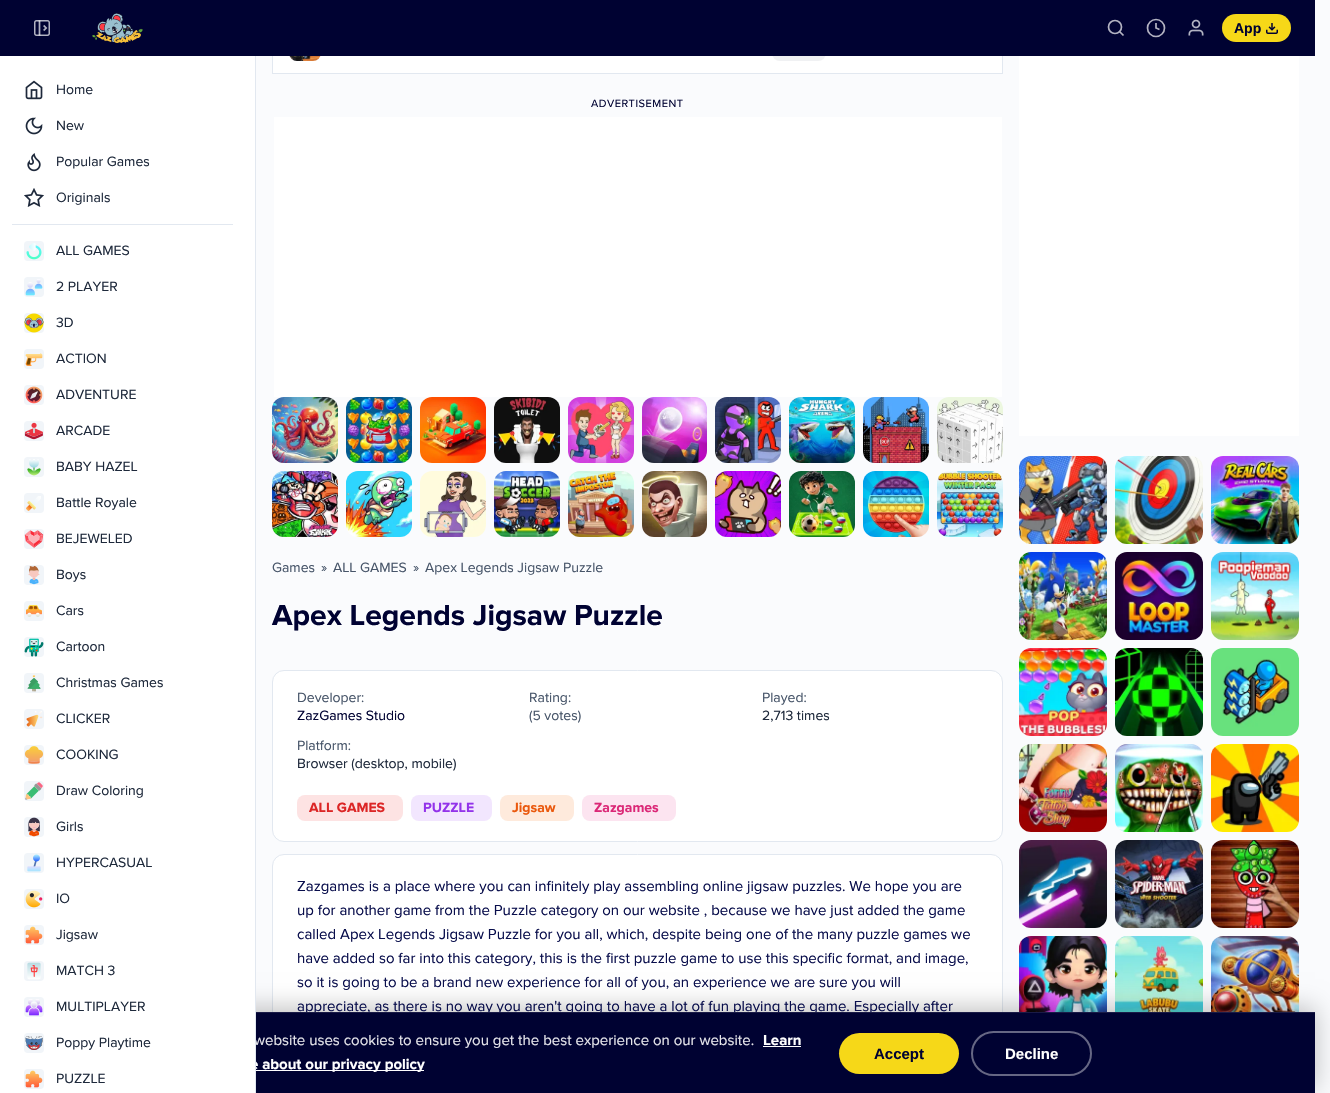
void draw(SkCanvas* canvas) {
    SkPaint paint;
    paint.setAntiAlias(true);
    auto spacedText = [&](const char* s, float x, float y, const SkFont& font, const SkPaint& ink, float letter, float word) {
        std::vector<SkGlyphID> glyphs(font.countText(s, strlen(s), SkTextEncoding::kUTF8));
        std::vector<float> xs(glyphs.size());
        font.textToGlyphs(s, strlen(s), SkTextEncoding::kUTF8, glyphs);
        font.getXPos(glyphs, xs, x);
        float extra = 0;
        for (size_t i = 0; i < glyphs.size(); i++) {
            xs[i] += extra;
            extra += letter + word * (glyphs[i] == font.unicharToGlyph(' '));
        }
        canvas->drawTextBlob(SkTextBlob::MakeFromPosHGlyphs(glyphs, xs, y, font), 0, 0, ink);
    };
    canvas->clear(0xFFFAFBFD);
    paint.setColor(0xFFFFFFFF);
    canvas->drawRect(SkRect::MakeXYWH(273, 56, 729, 17), paint);
    paint.setColor(0xFFF0F1F3);
    canvas->drawRoundRect(SkRect::MakeXYWH(772, 29, 54, 32), 8, 8, paint);
    paint.setColor(0xFF000232);
    canvas->drawRect(SkRect::MakeXYWH(0, 0, 1315, 56), paint);
    canvas->drawImageRect(SkImages::DeferredFromEncodedData(SkData::MakeFromFileName("img1.png")), SkRect::MakeXYWH(34, 20, 16, 16), SkSamplingOptions());
    canvas->drawImageRect(SkImages::DeferredFromEncodedData(SkData::MakeFromFileName("img2.png")), SkRect::MakeXYWH(92, 13, 51, 30), SkSamplingOptions());
    paint.setStyle(SkPaint::kStroke_Style);
    paint.setStrokeWidth(1.7f);
    paint.setColor(0xFFB3B3C2);
    canvas->drawCircle(1115, 27, 6.5f, paint);
    paint.setColor(0xB3FFFFFF);
    canvas->drawPath(SkPathBuilder().moveTo(1123.5f, 35.5f).lineTo(1120, 32).detach(), paint);
    paint.setColor(0xFFB3B3C2);
    canvas->drawCircle(1156, 28, 8.5f, paint);
    canvas->drawPath(SkPathBuilder().moveTo(1156, 23).lineTo(1156, 28).lineTo(1159.5f, 29.5f).detach(), paint);
    canvas->drawImageRect(SkImages::DeferredFromEncodedData(SkData::MakeFromFileName("img3.png")), SkRect::MakeXYWH(1188, 19, 16, 17), SkSamplingOptions());
    paint.setStyle(SkPaint::kFill_Style);
    paint.setColor(0xFFF6D818);
    canvas->drawRoundRect(SkRect::MakeXYWH(1222, 14, 69, 28), 14, 14, paint);
    SkFont font1(fontMgr->matchFamilyStyle("Liberation Sans", SkFontStyle::Bold()), 14);
    font1.setSubpixel(true);
    paint.setColor(0xFF000232);
    canvas->drawString("App", 1234, 33, font1, paint);
    canvas->drawImageRect(SkImages::DeferredFromEncodedData(SkData::MakeFromFileName("img4.png")), SkRect::MakeXYWH(1266, 23, 12, 11), SkSamplingOptions());
    paint.setColor(0xFFFFFFFF);
    canvas->drawRoundRect(SkRect::MakeXYWH(272.5f, 854.5f, 730, 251), 11.5f, 11.5f, paint);
    paint.setStyle(SkPaint::kStroke_Style);
    paint.setStrokeWidth(1);
    paint.setColor(0xFFE2E8F0);
    canvas->drawRoundRect(SkRect::MakeXYWH(272.5f, 854.5f, 730, 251), 11.5f, 11.5f, paint);
    canvas->drawImageRect(SkImages::DeferredFromEncodedData(SkData::MakeFromFileName("img68.png")), SkRect::MakeXYWH(1019, 936, 88, 76), SkSamplingOptions());
    canvas->drawImageRect(SkImages::DeferredFromEncodedData(SkData::MakeFromFileName("img69.png")), SkRect::MakeXYWH(1115, 936, 88, 76), SkSamplingOptions());
    canvas->drawImageRect(SkImages::DeferredFromEncodedData(SkData::MakeFromFileName("img70.png")), SkRect::MakeXYWH(1211, 936, 88, 76), SkSamplingOptions());
    paint.setStyle(SkPaint::kFill_Style);
    paint.setColor(0x40000000);
    paint.setMaskFilter(SkMaskFilter::MakeBlur(kNormal_SkBlurStyle, 12));
    canvas->drawRect(SkRect::MakeXYWH(0, 1008, 1315, 81), paint);
    paint.setMaskFilter(nullptr);
    SkFont font2(fontMgr->matchFamilyStyle("Proxima Nova", SkFontStyle::Normal()), 15);
    font2.setSubpixel(true);
    paint.setColor(0xFF090E4C);
    canvas->drawString("appreciate, as there is no way you aren't going to have a lot of fun playing the game. Especially after", 297, 1011, font2, paint);
    paint.setColor(0xFF000232);
    canvas->drawRect(SkRect::MakeXYWH(256, 1013, 1059, 80), paint);
    paint.setColor(0xFFE6E6EB);
    canvas->drawString("website uses cookies to ensure you get the best experience on our website.", 254, 1045, font2, paint);
    paint.setColor(0xFFFFFFFF);
    canvas->drawRect(SkRect::MakeXYWH(0, 56, 255, 1037), paint);
    canvas->drawRect(SkRect::MakeXYWH(256, 1070, 168, 1), paint);
    SkFont font3(fontMgr->matchFamilyStyle("Proxima Nova", SkFontStyle::Bold()), 15);
    font3.setSubpixel(true);
    canvas->drawString("e about our privacy policy", 250, 1069, font3, paint);
    paint.setColor(0xFFE2E8F0);
    canvas->drawRect(SkRect::MakeXYWH(255, 56, 1, 1037), paint);
    canvas->drawImageRect(SkImages::DeferredFromEncodedData(SkData::MakeFromFileName("img5.png")), SkRect::MakeXYWH(25, 80, 18, 20), SkSamplingOptions());
    SkFont font4(fontMgr->matchFamilyStyle("Proxima Nova", SkFontStyle::Normal()), 14);
    font4.setSubpixel(true);
    paint.setColor(0xFF1E293B);
    canvas->drawString("Home", 56, 94, font4, paint);
    canvas->drawImageRect(SkImages::DeferredFromEncodedData(SkData::MakeFromFileName("img6.png")), SkRect::MakeXYWH(25, 117, 18, 18), SkSamplingOptions());
    canvas->drawString("New", 56, 130, font4, paint);
    canvas->drawImageRect(SkImages::DeferredFromEncodedData(SkData::MakeFromFileName("img7.png")), SkRect::MakeXYWH(27, 153, 14, 19), SkSamplingOptions());
    canvas->drawString("Popular Games", 56, 166, font4, paint);
    canvas->drawImageRect(SkImages::DeferredFromEncodedData(SkData::MakeFromFileName("img8.png")), SkRect::MakeXYWH(24, 188, 20, 19), SkSamplingOptions());
    canvas->drawString("Originals", 56, 202, font4, paint);
    paint.setColor(0xFFE2E8F0);
    canvas->drawRect(SkRect::MakeXYWH(12, 224, 221, 1), paint);
    paint.setColor(0xFFF1F5F9);
    canvas->drawRoundRect(SkRect::MakeXYWH(24, 241, 20, 20), 4, 4, paint);
    canvas->drawImageRect(SkImages::DeferredFromEncodedData(SkData::MakeFromFileName("img9.png")), SkRect::MakeXYWH(26, 243, 16, 17), SkSamplingOptions());
    paint.setColor(0xFF1E293B);
    canvas->drawString("ALL GAMES", 56, 255, font4, paint);
    paint.setColor(0xFFF1F5F9);
    canvas->drawRoundRect(SkRect::MakeXYWH(24, 277, 20, 20), 4, 4, paint);
    canvas->drawImageRect(SkImages::DeferredFromEncodedData(SkData::MakeFromFileName("img10.png")), SkRect::MakeXYWH(25, 279, 18, 17), SkSamplingOptions());
    paint.setColor(0xFF1E293B);
    canvas->drawString("2 PLAYER", 56, 291, font4, paint);
    paint.setColor(0xFFF1F5F9);
    canvas->drawRoundRect(SkRect::MakeXYWH(24, 313, 20, 20), 4, 4, paint);
    canvas->drawImageRect(SkImages::DeferredFromEncodedData(SkData::MakeFromFileName("img11.png")), SkRect::MakeXYWH(24, 313, 20, 20), SkSamplingOptions());
    paint.setColor(0xFF1E293B);
    canvas->drawString("3D", 56, 327, font4, paint);
    paint.setColor(0xFFF1F5F9);
    canvas->drawRoundRect(SkRect::MakeXYWH(24, 349, 20, 20), 4, 4, paint);
    canvas->drawImageRect(SkImages::DeferredFromEncodedData(SkData::MakeFromFileName("img12.png")), SkRect::MakeXYWH(25, 353, 18, 13), SkSamplingOptions());
    paint.setColor(0xFF1E293B);
    canvas->drawString("ACTION", 56, 363, font4, paint);
    paint.setColor(0xFFF1F5F9);
    canvas->drawRoundRect(SkRect::MakeXYWH(24, 385, 20, 20), 4, 4, paint);
    canvas->drawImageRect(SkImages::DeferredFromEncodedData(SkData::MakeFromFileName("img13.png")), SkRect::MakeXYWH(25, 386, 18, 18), SkSamplingOptions());
    paint.setColor(0xFF1E293B);
    canvas->drawString("ADVENTURE", 56, 399, font4, paint);
    paint.setColor(0xFFF1F5F9);
    canvas->drawRoundRect(SkRect::MakeXYWH(24, 421, 20, 20), 4, 4, paint);
    canvas->drawImageRect(SkImages::DeferredFromEncodedData(SkData::MakeFromFileName("img14.png")), SkRect::MakeXYWH(24, 422, 19, 18), SkSamplingOptions());
    paint.setColor(0xFF1E293B);
    canvas->drawString("ARCADE", 56, 435, font4, paint);
    paint.setColor(0xFFF1F5F9);
    canvas->drawRoundRect(SkRect::MakeXYWH(24, 457, 20, 20), 4, 4, paint);
    canvas->drawImageRect(SkImages::DeferredFromEncodedData(SkData::MakeFromFileName("img15.png")), SkRect::MakeXYWH(27, 459, 14, 17), SkSamplingOptions());
    paint.setColor(0xFF1E293B);
    canvas->drawString("BABY HAZEL", 56, 471, font4, paint);
    paint.setColor(0xFFF1F5F9);
    canvas->drawRoundRect(SkRect::MakeXYWH(24, 493, 20, 20), 4, 4, paint);
    canvas->drawImageRect(SkImages::DeferredFromEncodedData(SkData::MakeFromFileName("img16.png")), SkRect::MakeXYWH(26, 496, 15, 15), SkSamplingOptions());
    paint.setColor(0xFF1E293B);
    canvas->drawString("Battle Royale", 56, 507, font4, paint);
    paint.setColor(0xFFF1F5F9);
    canvas->drawRoundRect(SkRect::MakeXYWH(24, 529, 20, 20), 4, 4, paint);
    canvas->drawImageRect(SkImages::DeferredFromEncodedData(SkData::MakeFromFileName("img17.png")), SkRect::MakeXYWH(24, 530, 20, 18), SkSamplingOptions());
    paint.setColor(0xFF1E293B);
    canvas->drawString("BEJEWELED", 56, 543, font4, paint);
    paint.setColor(0xFFF1F5F9);
    canvas->drawRoundRect(SkRect::MakeXYWH(24, 565, 20, 20), 4, 4, paint);
    canvas->drawImageRect(SkImages::DeferredFromEncodedData(SkData::MakeFromFileName("img18.png")), SkRect::MakeXYWH(28, 565, 12, 20), SkSamplingOptions());
    paint.setColor(0xFF1E293B);
    canvas->drawString("Boys", 56, 579, font4, paint);
    paint.setColor(0xFFF1F5F9);
    canvas->drawRoundRect(SkRect::MakeXYWH(24, 601, 20, 20), 4, 4, paint);
    canvas->drawImageRect(SkImages::DeferredFromEncodedData(SkData::MakeFromFileName("img19.png")), SkRect::MakeXYWH(26, 605, 16, 12), SkSamplingOptions());
    paint.setColor(0xFF1E293B);
    canvas->drawString("Cars", 56, 615, font4, paint);
    paint.setColor(0xFFF1F5F9);
    canvas->drawRoundRect(SkRect::MakeXYWH(24, 637, 20, 20), 4, 4, paint);
    canvas->drawImageRect(SkImages::DeferredFromEncodedData(SkData::MakeFromFileName("img20.png")), SkRect::MakeXYWH(24, 638, 20, 19), SkSamplingOptions());
    paint.setColor(0xFF1E293B);
    canvas->drawString("Cartoon", 56, 651, font4, paint);
    paint.setColor(0xFFF1F5F9);
    canvas->drawRoundRect(SkRect::MakeXYWH(24, 673, 20, 20), 4, 4, paint);
    canvas->drawImageRect(SkImages::DeferredFromEncodedData(SkData::MakeFromFileName("img21.png")), SkRect::MakeXYWH(27, 675, 14, 17), SkSamplingOptions());
    paint.setColor(0xFF1E293B);
    canvas->drawString("Christmas Games", 56, 687, font4, paint);
    paint.setColor(0xFFF1F5F9);
    canvas->drawRoundRect(SkRect::MakeXYWH(24, 709, 20, 20), 4, 4, paint);
    canvas->drawImageRect(SkImages::DeferredFromEncodedData(SkData::MakeFromFileName("img22.png")), SkRect::MakeXYWH(26, 711, 17, 16), SkSamplingOptions());
    paint.setColor(0xFF1E293B);
    canvas->drawString("CLICKER", 56, 723, font4, paint);
    paint.setColor(0xFFF1F5F9);
    canvas->drawRoundRect(SkRect::MakeXYWH(24, 745, 20, 20), 4, 4, paint);
    canvas->drawImageRect(SkImages::DeferredFromEncodedData(SkData::MakeFromFileName("img23.png")), SkRect::MakeXYWH(24, 746, 20, 18), SkSamplingOptions());
    paint.setColor(0xFF1E293B);
    canvas->drawString("COOKING", 56, 759, font4, paint);
    paint.setColor(0xFFF1F5F9);
    canvas->drawRoundRect(SkRect::MakeXYWH(24, 781, 20, 20), 4, 4, paint);
    canvas->drawImageRect(SkImages::DeferredFromEncodedData(SkData::MakeFromFileName("img24.png")), SkRect::MakeXYWH(25, 782, 18, 18), SkSamplingOptions());
    paint.setColor(0xFF1E293B);
    canvas->drawString("Draw Coloring", 56, 795, font4, paint);
    paint.setColor(0xFFF1F5F9);
    canvas->drawRoundRect(SkRect::MakeXYWH(24, 817, 20, 20), 4, 4, paint);
    canvas->drawImageRect(SkImages::DeferredFromEncodedData(SkData::MakeFromFileName("img25.png")), SkRect::MakeXYWH(28, 817, 12, 20), SkSamplingOptions());
    paint.setColor(0xFF1E293B);
    canvas->drawString("Girls", 56, 831, font4, paint);
    paint.setColor(0xFFF1F5F9);
    canvas->drawRoundRect(SkRect::MakeXYWH(24, 853, 20, 20), 4, 4, paint);
    canvas->drawImageRect(SkImages::DeferredFromEncodedData(SkData::MakeFromFileName("img26.png")), SkRect::MakeXYWH(27, 854, 14, 18), SkSamplingOptions());
    paint.setColor(0xFF1E293B);
    canvas->drawString("HYPERCASUAL", 56, 867, font4, paint);
    paint.setColor(0xFFF1F5F9);
    canvas->drawRoundRect(SkRect::MakeXYWH(24, 889, 20, 20), 4, 4, paint);
    canvas->drawImageRect(SkImages::DeferredFromEncodedData(SkData::MakeFromFileName("img27.png")), SkRect::MakeXYWH(25, 890, 18, 18), SkSamplingOptions());
    paint.setColor(0xFF1E293B);
    canvas->drawString("IO", 56, 903, font4, paint);
    paint.setColor(0xFFF1F5F9);
    canvas->drawRoundRect(SkRect::MakeXYWH(24, 925, 20, 20), 4, 4, paint);
    canvas->drawImageRect(SkImages::DeferredFromEncodedData(SkData::MakeFromFileName("img28.png")), SkRect::MakeXYWH(25, 926, 18, 18), SkSamplingOptions());
    paint.setColor(0xFF1E293B);
    canvas->drawString("Jigsaw", 56, 939, font4, paint);
    paint.setColor(0xFFF1F5F9);
    canvas->drawRoundRect(SkRect::MakeXYWH(24, 961, 20, 20), 4, 4, paint);
    canvas->drawImageRect(SkImages::DeferredFromEncodedData(SkData::MakeFromFileName("img29.png")), SkRect::MakeXYWH(27, 962, 14, 18), SkSamplingOptions());
    paint.setColor(0xFF1E293B);
    canvas->drawString("MATCH 3", 56, 975, font4, paint);
    paint.setColor(0xFFF1F5F9);
    canvas->drawRoundRect(SkRect::MakeXYWH(24, 997, 20, 20), 4, 4, paint);
    canvas->drawImageRect(SkImages::DeferredFromEncodedData(SkData::MakeFromFileName("img30.png")), SkRect::MakeXYWH(25, 999, 18, 17), SkSamplingOptions());
    paint.setColor(0xFF1E293B);
    canvas->drawString("MULTIPLAYER", 56, 1011, font4, paint);
    paint.setColor(0xFFF1F5F9);
    canvas->drawRoundRect(SkRect::MakeXYWH(24, 1033, 20, 20), 4, 4, paint);
    canvas->drawImageRect(SkImages::DeferredFromEncodedData(SkData::MakeFromFileName("img31.png")), SkRect::MakeXYWH(25, 1036, 18, 14), SkSamplingOptions());
    paint.setColor(0xFF1E293B);
    canvas->drawString("Poppy Playtime", 56, 1047, font4, paint);
    paint.setColor(0xFFF1F5F9);
    canvas->drawRoundRect(SkRect::MakeXYWH(24, 1069, 20, 20), 4, 4, paint);
    canvas->drawImageRect(SkImages::DeferredFromEncodedData(SkData::MakeFromFileName("img28.png")), SkRect::MakeXYWH(25, 1070, 18, 18), SkSamplingOptions());
    paint.setColor(0xFF1E293B);
    canvas->drawString("PUZZLE", 56, 1083, font4, paint);
    paint.setColor(0xFFE2E8F0);
    canvas->drawRect(SkRect::MakeXYWH(1002, 56, 1, 18), paint);
    canvas->drawRect(SkRect::MakeXYWH(272, 73, 731, 1), paint);
    canvas->drawRect(SkRect::MakeXYWH(272, 56, 1, 18), paint);
    canvas->drawImageRect(SkImages::DeferredFromEncodedData(SkData::MakeFromFileName("img32.png")), SkRect::MakeXYWH(289, 56, 32, 5), SkSamplingOptions());
    SkFont font5(fontMgr->matchFamilyStyle("Proxima Nova", SkFontStyle::Normal()), 11);
    font5.setSubpixel(true);
    paint.setColor(0xFF000232);
    spacedText("ADVERTISEMENT", 591, 107, font5, paint, 0.5f, 0);
    paint.setColor(0xFFFFFFFF);
    canvas->drawRect(SkRect::MakeXYWH(274, 117, 728, 280), paint);
    canvas->drawImageRect(SkImages::DeferredFromEncodedData(SkData::MakeFromFileName("img33.png")), SkRect::MakeXYWH(272, 397, 66, 66), SkSamplingOptions());
    canvas->drawImageRect(SkImages::DeferredFromEncodedData(SkData::MakeFromFileName("img34.png")), SkRect::MakeXYWH(346, 397, 66, 66), SkSamplingOptions());
    canvas->drawImageRect(SkImages::DeferredFromEncodedData(SkData::MakeFromFileName("img35.png")), SkRect::MakeXYWH(420, 397, 66, 66), SkSamplingOptions());
    canvas->drawImageRect(SkImages::DeferredFromEncodedData(SkData::MakeFromFileName("img36.png")), SkRect::MakeXYWH(494, 397, 66, 66), SkSamplingOptions());
    canvas->drawImageRect(SkImages::DeferredFromEncodedData(SkData::MakeFromFileName("img37.png")), SkRect::MakeXYWH(568, 397, 66, 66), SkSamplingOptions());
    canvas->drawImageRect(SkImages::DeferredFromEncodedData(SkData::MakeFromFileName("img38.png")), SkRect::MakeXYWH(642, 397, 65, 66), SkSamplingOptions());
    canvas->drawImageRect(SkImages::DeferredFromEncodedData(SkData::MakeFromFileName("img39.png")), SkRect::MakeXYWH(715, 397, 66, 66), SkSamplingOptions());
    canvas->drawImageRect(SkImages::DeferredFromEncodedData(SkData::MakeFromFileName("img40.png")), SkRect::MakeXYWH(789, 397, 66, 66), SkSamplingOptions());
    canvas->drawImageRect(SkImages::DeferredFromEncodedData(SkData::MakeFromFileName("img41.png")), SkRect::MakeXYWH(863, 397, 66, 66), SkSamplingOptions());
    canvas->drawImageRect(SkImages::DeferredFromEncodedData(SkData::MakeFromFileName("img42.png")), SkRect::MakeXYWH(937, 397, 66, 66), SkSamplingOptions());
    canvas->drawImageRect(SkImages::DeferredFromEncodedData(SkData::MakeFromFileName("img43.png")), SkRect::MakeXYWH(272, 471, 66, 66), SkSamplingOptions());
    canvas->drawImageRect(SkImages::DeferredFromEncodedData(SkData::MakeFromFileName("img44.png")), SkRect::MakeXYWH(346, 471, 66, 66), SkSamplingOptions());
    canvas->drawImageRect(SkImages::DeferredFromEncodedData(SkData::MakeFromFileName("img45.png")), SkRect::MakeXYWH(420, 471, 66, 66), SkSamplingOptions());
    canvas->drawImageRect(SkImages::DeferredFromEncodedData(SkData::MakeFromFileName("img46.png")), SkRect::MakeXYWH(494, 471, 66, 66), SkSamplingOptions());
    canvas->drawImageRect(SkImages::DeferredFromEncodedData(SkData::MakeFromFileName("img47.png")), SkRect::MakeXYWH(568, 471, 66, 66), SkSamplingOptions());
    canvas->drawImageRect(SkImages::DeferredFromEncodedData(SkData::MakeFromFileName("img48.png")), SkRect::MakeXYWH(642, 471, 65, 66), SkSamplingOptions());
    canvas->drawImageRect(SkImages::DeferredFromEncodedData(SkData::MakeFromFileName("img49.png")), SkRect::MakeXYWH(715, 471, 66, 66), SkSamplingOptions());
    canvas->drawImageRect(SkImages::DeferredFromEncodedData(SkData::MakeFromFileName("img50.png")), SkRect::MakeXYWH(789, 471, 66, 66), SkSamplingOptions());
    canvas->drawImageRect(SkImages::DeferredFromEncodedData(SkData::MakeFromFileName("img51.png")), SkRect::MakeXYWH(863, 471, 66, 66), SkSamplingOptions());
    canvas->drawImageRect(SkImages::DeferredFromEncodedData(SkData::MakeFromFileName("img52.png")), SkRect::MakeXYWH(937, 471, 66, 66), SkSamplingOptions());
    paint.setColor(0xFF475569);
    canvas->drawString("Games", 272, 572, font4, paint);
    canvas->drawString("»", 321, 572, font4, paint);
    canvas->drawString("ALL GAMES", 333, 572, font4, paint);
    canvas->drawString("»", 413, 572, font4, paint);
    canvas->drawString("Apex Legends Jigsaw Puzzle", 425, 572, font4, paint);
    SkFont font6(fontMgr->matchFamilyStyle("Proxima Nova", SkFontStyle::Bold()), 30);
    font6.setSubpixel(true);
    paint.setColor(0xFF000232);
    canvas->drawString("Apex Legends Jigsaw Puzzle", 272, 625, font6, paint);
    paint.setColor(0xFFFFFFFF);
    canvas->drawRoundRect(SkRect::MakeXYWH(272.5f, 670.5f, 730, 171), 11.5f, 11.5f, paint);
    paint.setStyle(SkPaint::kStroke_Style);
    paint.setColor(0xFFE2E8F0);
    canvas->drawRoundRect(SkRect::MakeXYWH(272.5f, 670.5f, 730, 171), 11.5f, 11.5f, paint);
    paint.setStyle(SkPaint::kFill_Style);
    paint.setColor(0xFF475569);
    canvas->drawString("Developer:", 297, 702, font4, paint);
    paint.setColor(0xFF000232);
    canvas->drawString("ZazGames Studio", 297, 720, font4, paint);
    paint.setColor(0xFF475569);
    canvas->drawString("Rating:", 529, 702, font4, paint);
    canvas->drawString("(5 votes)", 529, 720, font4, paint);
    canvas->drawString("Played:", 762, 702, font4, paint);
    paint.setColor(0xFF1E293B);
    canvas->drawString("2,713 times", 762, 720, font4, paint);
    paint.setColor(0xFF475569);
    canvas->drawString("Platform:", 297, 750, font4, paint);
    paint.setColor(0xFF1E293B);
    canvas->drawString("Browser (desktop, mobile)", 297, 768, font4, paint);
    paint.setColor(0xFFFDE3E3);
    canvas->drawRoundRect(SkRect::MakeXYWH(297, 795, 106, 26), 8, 8, paint);
    SkFont font7(fontMgr->matchFamilyStyle("Proxima Nova", SkFontStyle::Bold()), 14);
    font7.setSubpixel(true);
    paint.setColor(0xFFDC2626);
    canvas->drawString("ALL GAMES", 309, 812, font7, paint);
    paint.setColor(0xFFF2E6FE);
    canvas->drawRoundRect(SkRect::MakeXYWH(411, 795, 81, 26), 8, 8, paint);
    paint.setColor(0xFF9333EA);
    canvas->drawString("PUZZLE", 423, 812, font7, paint);
    paint.setColor(0xFFFEEADC);
    canvas->drawRoundRect(SkRect::MakeXYWH(500, 795, 74, 26), 8, 8, paint);
    paint.setColor(0xFFEA580C);
    canvas->drawString("Jigsaw", 512, 812, font7, paint);
    paint.setColor(0xFFFCE4F0);
    canvas->drawRoundRect(SkRect::MakeXYWH(582, 795, 94, 26), 8, 8, paint);
    paint.setColor(0xFFDB2777);
    canvas->drawString("Zazgames", 594, 812, font7, paint);
    paint.setColor(0xFF090E4C);
    canvas->drawString("Zazgames is a place where you can infinitely play assembling online jigsaw puzzles. We hope you are", 297, 891, font2, paint);
    canvas->drawString("up for another game from the Puzzle category on our website , because we have just added the game", 297, 915, font2, paint);
    canvas->drawString("called Apex Legends Jigsaw Puzzle for you all, which, despite being one of the many puzzle games we", 297, 939, font2, paint);
    canvas->drawString("have added so far into this category, this is the first puzzle game to use this specific format, and image,", 297, 963, font2, paint);
    canvas->drawString("so it is going to be a brand new experience for all of you, an experience we are sure you will", 297, 987, font2, paint);
    paint.setColor(0xFFFFFFFF);
    canvas->drawRect(SkRect::MakeXYWH(1019, 56, 280, 380), paint);
    canvas->drawImageRect(SkImages::DeferredFromEncodedData(SkData::MakeFromFileName("img53.png")), SkRect::MakeXYWH(1019, 456, 88, 88), SkSamplingOptions());
    canvas->drawImageRect(SkImages::DeferredFromEncodedData(SkData::MakeFromFileName("img54.png")), SkRect::MakeXYWH(1115, 456, 88, 88), SkSamplingOptions());
    canvas->drawImageRect(SkImages::DeferredFromEncodedData(SkData::MakeFromFileName("img55.png")), SkRect::MakeXYWH(1211, 456, 88, 88), SkSamplingOptions());
    canvas->drawImageRect(SkImages::DeferredFromEncodedData(SkData::MakeFromFileName("img56.png")), SkRect::MakeXYWH(1019, 552, 88, 88), SkSamplingOptions());
    canvas->drawImageRect(SkImages::DeferredFromEncodedData(SkData::MakeFromFileName("img57.png")), SkRect::MakeXYWH(1115, 552, 88, 88), SkSamplingOptions());
    canvas->drawImageRect(SkImages::DeferredFromEncodedData(SkData::MakeFromFileName("img58.png")), SkRect::MakeXYWH(1211, 552, 88, 88), SkSamplingOptions());
    canvas->drawImageRect(SkImages::DeferredFromEncodedData(SkData::MakeFromFileName("img59.png")), SkRect::MakeXYWH(1019, 648, 88, 88), SkSamplingOptions());
    canvas->drawImageRect(SkImages::DeferredFromEncodedData(SkData::MakeFromFileName("img60.png")), SkRect::MakeXYWH(1115, 648, 88, 88), SkSamplingOptions());
    canvas->drawImageRect(SkImages::DeferredFromEncodedData(SkData::MakeFromFileName("img61.png")), SkRect::MakeXYWH(1211, 648, 88, 88), SkSamplingOptions());
    canvas->drawImageRect(SkImages::DeferredFromEncodedData(SkData::MakeFromFileName("img62.png")), SkRect::MakeXYWH(1019, 744, 88, 88), SkSamplingOptions());
    canvas->drawImageRect(SkImages::DeferredFromEncodedData(SkData::MakeFromFileName("img63.png")), SkRect::MakeXYWH(1115, 744, 88, 88), SkSamplingOptions());
    canvas->drawImageRect(SkImages::DeferredFromEncodedData(SkData::MakeFromFileName("img64.png")), SkRect::MakeXYWH(1211, 744, 88, 88), SkSamplingOptions());
    canvas->drawImageRect(SkImages::DeferredFromEncodedData(SkData::MakeFromFileName("img65.png")), SkRect::MakeXYWH(1019, 840, 88, 88), SkSamplingOptions());
    canvas->drawImageRect(SkImages::DeferredFromEncodedData(SkData::MakeFromFileName("img66.png")), SkRect::MakeXYWH(1115, 840, 88, 88), SkSamplingOptions());
    canvas->drawImageRect(SkImages::DeferredFromEncodedData(SkData::MakeFromFileName("img67.png")), SkRect::MakeXYWH(1211, 840, 88, 88), SkSamplingOptions());
    paint.setColor(0xFF1A1B47);
    canvas->drawRect(SkRect::MakeXYWH(256, 1012, 1059, 1), paint);
    paint.setColor(0xFFFFFFFF);
    canvas->drawString("Learn", 763, 1045, font3, paint);
    canvas->drawRect(SkRect::MakeXYWH(763, 1046, 38, 1), paint);
    paint.setColor(0xFFF6D818);
    canvas->drawRoundRect(SkRect::MakeXYWH(839, 1033, 120, 41), 20.5f, 20.5f, paint);
    SkFont font8(fontMgr->matchFamilyStyle("Liberation Sans", SkFontStyle::Bold()), 15);
    font8.setSubpixel(true);
    paint.setColor(0xFF000232);
    canvas->drawString("Accept", 874, 1059, font8, paint);
    paint.setStyle(SkPaint::kStroke_Style);
    paint.setStrokeWidth(2);
    paint.setColor(0xFF666784);
    canvas->drawRoundRect(SkRect::MakeXYWH(972, 1032, 119, 43), 21.5f, 21.5f, paint);
    paint.setStyle(SkPaint::kFill_Style);
    paint.setColor(0xFFFFFFFF);
    canvas->drawString("Decline", 1005, 1059, font8, paint);
}
